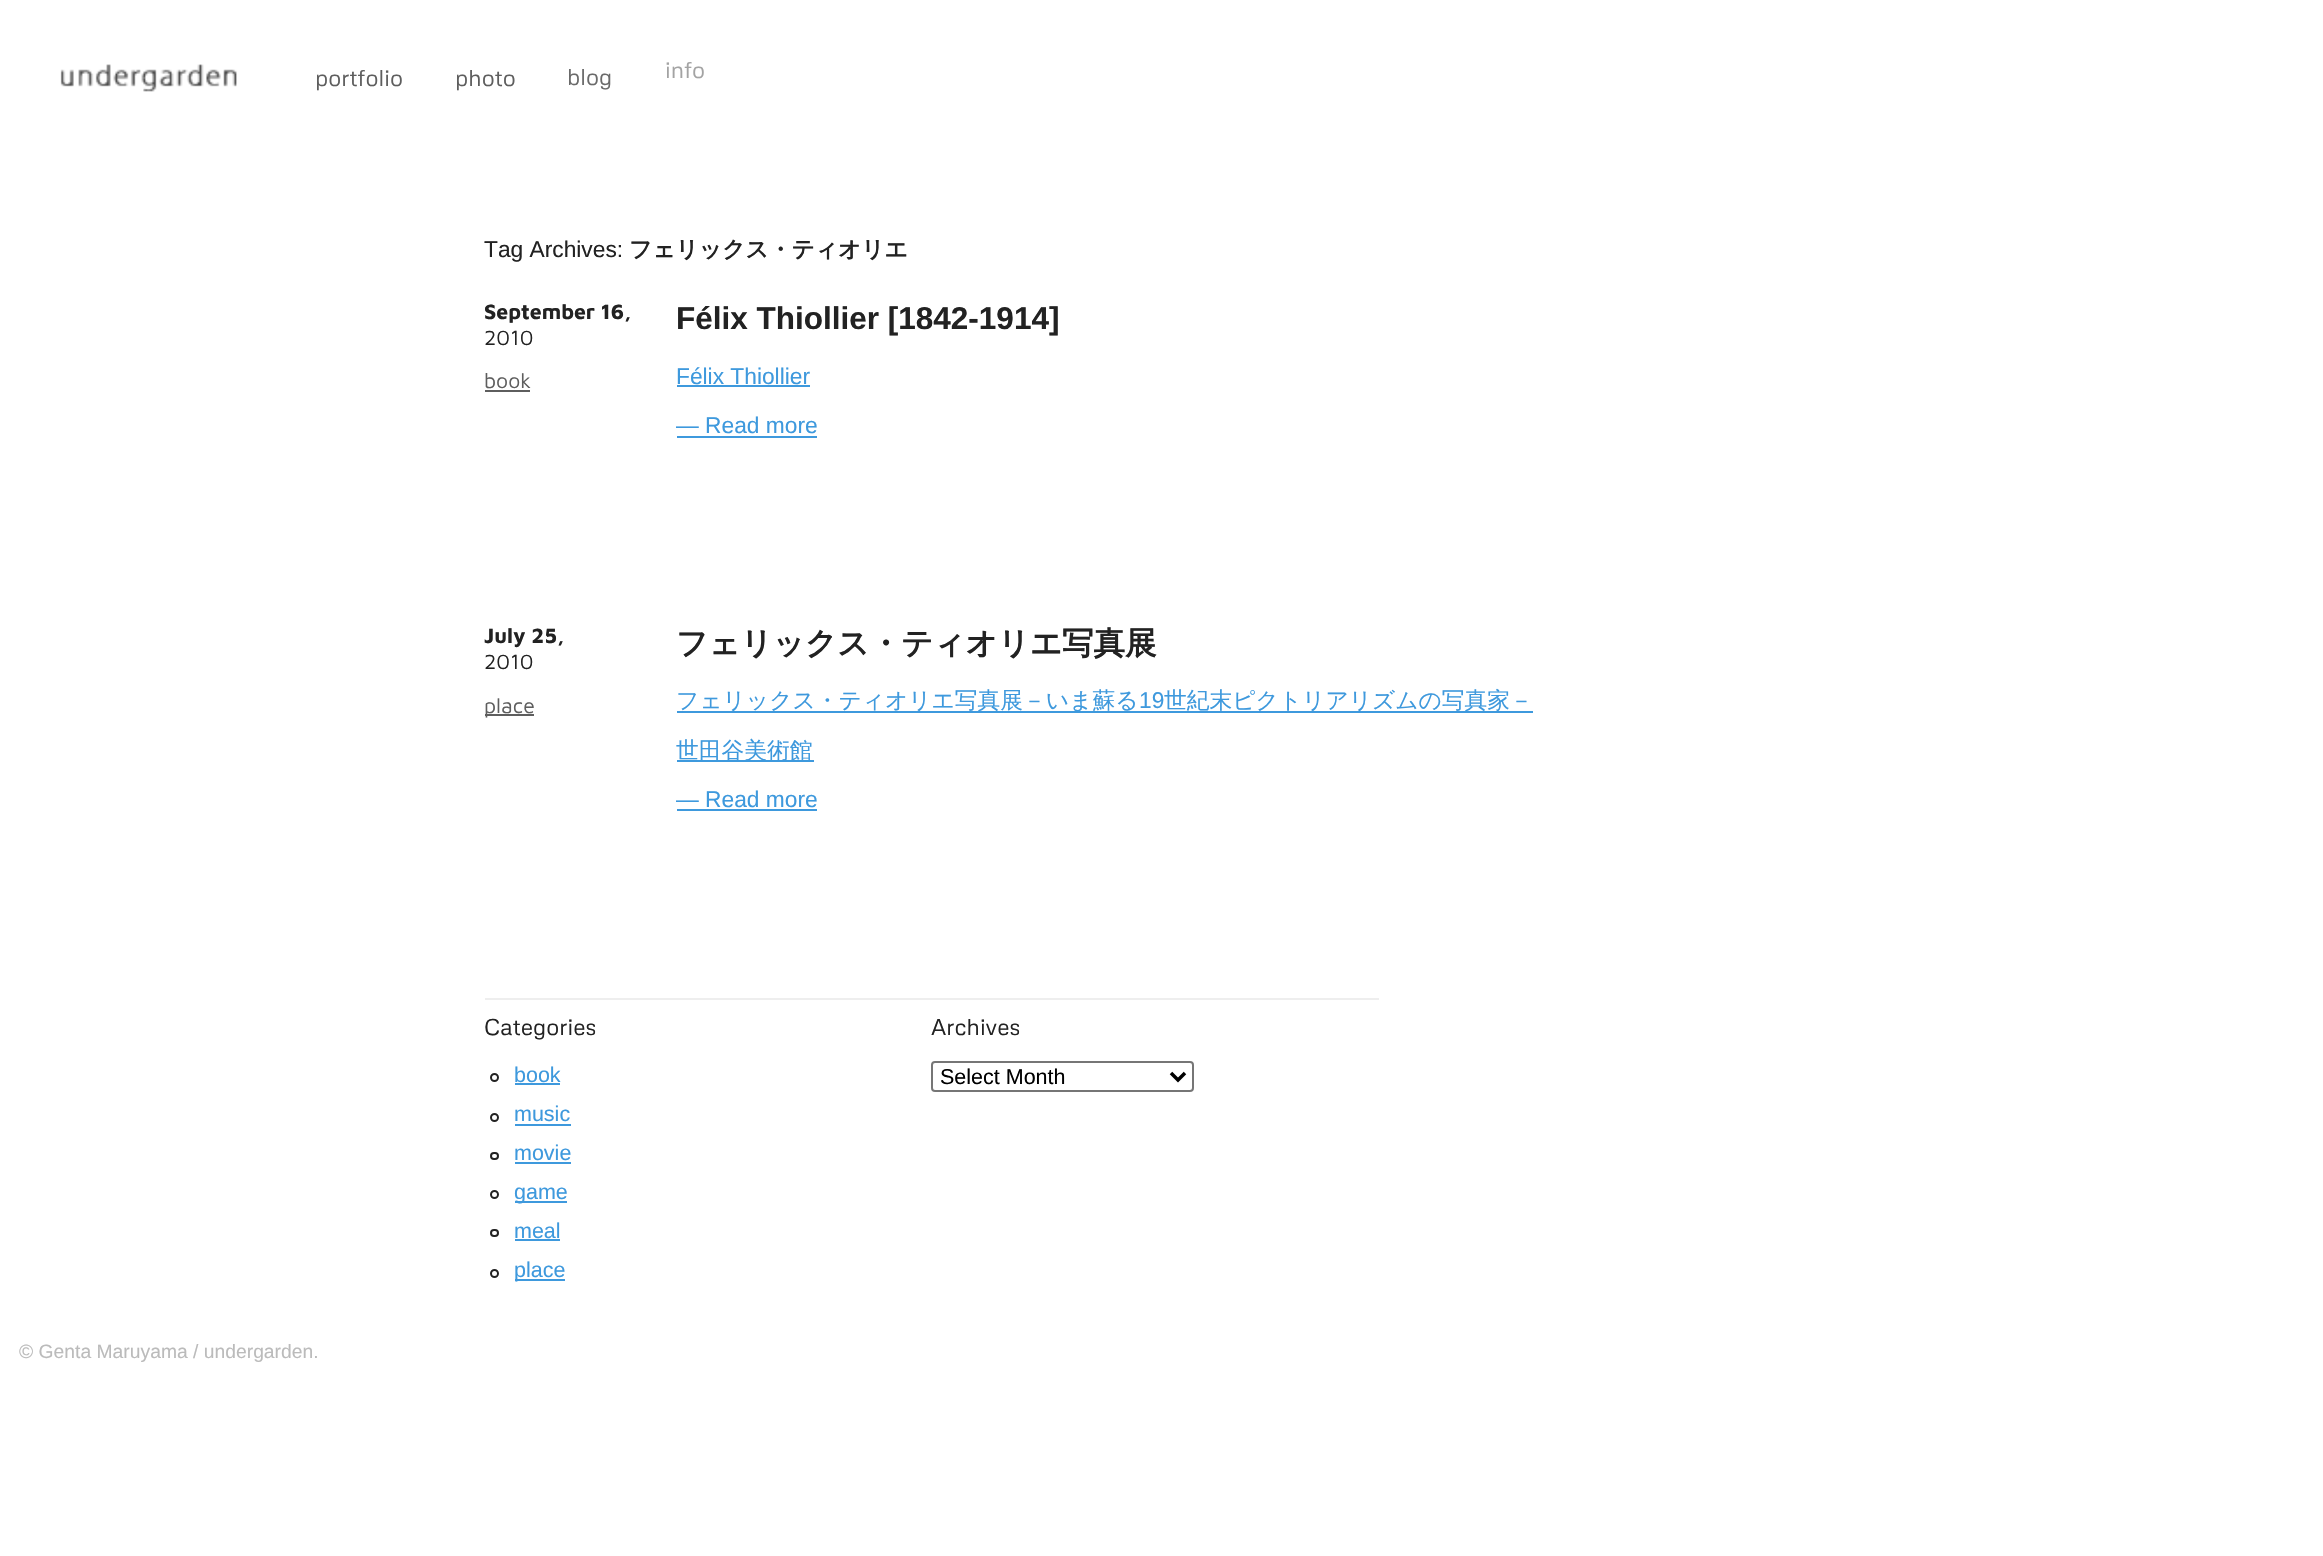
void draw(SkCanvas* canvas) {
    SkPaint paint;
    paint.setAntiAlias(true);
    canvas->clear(0xFFFFFFFF);
    canvas->drawImageRect(SkImages::DeferredFromEncodedData(SkData::MakeFromFileName("img1.png")), SkRect::MakeXYWH(60, 64, 177, 28), SkSamplingOptions());
    SkFont font1(fontMgr->matchFamilyStyle("Metrophobic", SkFontStyle::Normal()), 22.75f);
    font1.setSubpixel(true);
    paint.setColor(0xFF5E5E5E);
    canvas->drawString("portfolio", 315, 86, font1, paint);
    canvas->drawString("photo", 455, 86, font1, paint);
    paint.setColor(0xFF6A6A6A);
    canvas->drawString("blog", 567, 85, font1, paint);
    paint.setColor(0xFFA3A3A3);
    canvas->drawString("info", 665, 78, font1, paint);
    SkFont font2(fontMgr->matchFamilyStyle("Liberation Sans", SkFontStyle::Normal()), 22.75f);
    font2.setSubpixel(true);
    paint.setColor(0xFF222222);
    canvas->drawString("Tag Archives:", 484, 257, font2, paint);
    SkFont font3(fontMgr->matchFamilyStyle("WenQuanYi Zen Hei", SkFontStyle::Bold()), 22.75f);
    font3.setSubpixel(true);
    canvas->drawString("フェリックス・ティオリエ", 629, 257, font3, paint);
    SkFont font4(fontMgr->matchFamilyStyle("Maven Pro", SkFontStyle::Bold()), 21.25f);
    font4.setSubpixel(true);
    canvas->drawString("September 16,", 484, 319, font4, paint);
    SkFont font5(fontMgr->matchFamilyStyle("Maven Pro", SkFontStyle::Normal()), 21.25f);
    font5.setSubpixel(true);
    canvas->drawString("2010", 484, 345, font5, paint);
    paint.setColor(0xFF5E5E5E);
    canvas->drawString("book", 484, 388, font5, paint);
    canvas->drawRect(SkRect::MakeXYWH(485, 390, 45, 2), paint);
    SkFont font6(fontMgr->matchFamilyStyle("Liberation Sans", SkFontStyle::Bold()), 31.5f);
    font6.setSubpixel(true);
    paint.setColor(0xFF222222);
    canvas->drawString("Félix Thiollier [1842-1914]", 676, 329, font6, paint);
    paint.setColor(0xFF3E99DD);
    canvas->drawString("Félix Thiollier", 676, 384, font2, paint);
    canvas->drawRect(SkRect::MakeXYWH(677, 385, 133, 2), paint);
    canvas->drawString("— Read more", 676, 433, font2, paint);
    canvas->drawRect(SkRect::MakeXYWH(677, 436, 140, 2), paint);
    paint.setColor(0xFF222222);
    canvas->drawString("July 25,", 484, 643, font4, paint);
    canvas->drawString("2010", 484, 669, font5, paint);
    paint.setColor(0xFF5E5E5E);
    canvas->drawRect(SkRect::MakeXYWH(485, 714, 49, 2), paint);
    canvas->drawString("place", 484, 713, font5, paint);
    SkFont font7(fontMgr->matchFamilyStyle("WenQuanYi Zen Hei", SkFontStyle::Bold()), 31.5f);
    font7.setSubpixel(true);
    paint.setColor(0xFF222222);
    canvas->drawString("フェリックス・ティオリエ写真展", 676, 654, font7, paint);
    paint.setColor(0xFF3E99DD);
    canvas->drawRect(SkRect::MakeXYWH(677, 711, 856, 2), paint);
    SkFont font8(fontMgr->matchFamilyStyle("WenQuanYi Zen Hei", SkFontStyle(500, SkFontStyle::kNormal_Width, SkFontStyle::kUpright_Slant)), 22.75f);
    font8.setSubpixel(true);
    canvas->drawString("フェリックス・ティオリエ写真展－いま蘇る", 676, 708, font8, paint);
    canvas->drawString("19", 1139, 708, font2, paint);
    canvas->drawString("世紀末ピクトリアリズムの写真家－", 1164, 708, font8, paint);
    canvas->drawRect(SkRect::MakeXYWH(677, 760, 137, 2), paint);
    canvas->drawString("世田谷美術館", 676, 758, font8, paint);
    canvas->drawString("— Read more", 676, 807, font2, paint);
    canvas->drawRect(SkRect::MakeXYWH(677, 809, 140, 2), paint);
    paint.setColor(0xFFEEEEEE);
    canvas->drawRect(SkRect::MakeXYWH(485, 998, 894, 2), paint);
    paint.setColor(0xFF222222);
    canvas->drawString("Categories", 484, 1035, font1, paint);
    paint.setStyle(SkPaint::kStroke_Style);
    paint.setStrokeWidth(2);
    canvas->drawCircle(494.5f, 1077.5f, 3.5f, paint);
    SkFont font9(fontMgr->matchFamilyStyle("Liberation Sans", SkFontStyle::Normal()), 21.5f);
    font9.setSubpixel(true);
    paint.setStyle(SkPaint::kFill_Style);
    paint.setColor(0xFF3E99DD);
    canvas->drawString("book", 514, 1082, font9, paint);
    canvas->drawRect(SkRect::MakeXYWH(515, 1083, 45, 2), paint);
    paint.setStyle(SkPaint::kStroke_Style);
    paint.setColor(0xFF222222);
    canvas->drawCircle(494.5f, 1117.5f, 3.5f, paint);
    paint.setStyle(SkPaint::kFill_Style);
    paint.setColor(0xFF3E99DD);
    canvas->drawString("music", 514, 1121, font9, paint);
    canvas->drawRect(SkRect::MakeXYWH(515, 1124, 56, 2), paint);
    paint.setStyle(SkPaint::kStroke_Style);
    paint.setColor(0xFF222222);
    canvas->drawRoundRect(SkRect::MakeXYWH(491, 1153, 7, 6), 3, 3, paint);
    paint.setStyle(SkPaint::kFill_Style);
    paint.setColor(0xFF3E99DD);
    canvas->drawString("movie", 514, 1160, font9, paint);
    canvas->drawRect(SkRect::MakeXYWH(515, 1162, 56, 2), paint);
    paint.setStyle(SkPaint::kStroke_Style);
    paint.setColor(0xFF222222);
    canvas->drawCircle(494.5f, 1194.5f, 3.5f, paint);
    paint.setStyle(SkPaint::kFill_Style);
    paint.setColor(0xFF3E99DD);
    canvas->drawRect(SkRect::MakeXYWH(515, 1201, 52, 2), paint);
    canvas->drawString("game", 514, 1199, font9, paint);
    paint.setStyle(SkPaint::kStroke_Style);
    paint.setColor(0xFF222222);
    canvas->drawRoundRect(SkRect::MakeXYWH(491, 1230, 7, 6), 3, 3, paint);
    paint.setStyle(SkPaint::kFill_Style);
    paint.setColor(0xFF3E99DD);
    canvas->drawString("meal", 514, 1238, font9, paint);
    canvas->drawRect(SkRect::MakeXYWH(515, 1239, 45, 2), paint);
    paint.setStyle(SkPaint::kStroke_Style);
    paint.setColor(0xFF222222);
    canvas->drawCircle(494.5f, 1273.5f, 3.5f, paint);
    paint.setStyle(SkPaint::kFill_Style);
    paint.setColor(0xFF3E99DD);
    canvas->drawRect(SkRect::MakeXYWH(515, 1279, 50, 2), paint);
    canvas->drawString("place", 514, 1277, font9, paint);
    paint.setColor(0xFF222222);
    canvas->drawString("Archives", 931, 1035, font1, paint);
    paint.setStyle(SkPaint::kStroke_Style);
    paint.setColor(0xFF767676);
    canvas->drawRoundRect(SkRect::MakeXYWH(932, 1062, 261, 29), 3, 3, paint);
    paint.setStrokeWidth(3.5f);
    paint.setColor(0xFF000000);
    canvas->drawPath(SkPathBuilder().moveTo(1171, 1073).lineTo(1178, 1080).lineTo(1185, 1073).detach(), paint);
    paint.setStyle(SkPaint::kFill_Style);
    canvas->drawString("Select Month", 940, 1084, font9, paint);
    SkFont font10(fontMgr->matchFamilyStyle("Liberation Sans", SkFontStyle::Normal()), 19.3f);
    font10.setSubpixel(true);
    paint.setColor(0xFFBBBBBB);
    canvas->drawString("© Genta Maruyama / undergarden.", 19, 1358, font10, paint);
}
